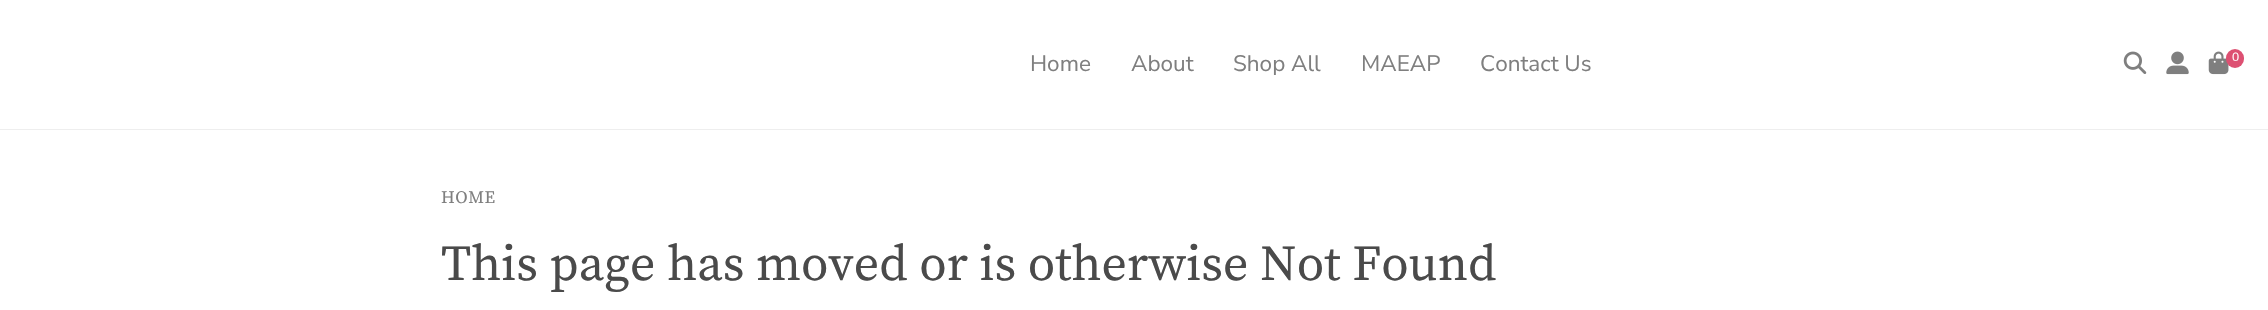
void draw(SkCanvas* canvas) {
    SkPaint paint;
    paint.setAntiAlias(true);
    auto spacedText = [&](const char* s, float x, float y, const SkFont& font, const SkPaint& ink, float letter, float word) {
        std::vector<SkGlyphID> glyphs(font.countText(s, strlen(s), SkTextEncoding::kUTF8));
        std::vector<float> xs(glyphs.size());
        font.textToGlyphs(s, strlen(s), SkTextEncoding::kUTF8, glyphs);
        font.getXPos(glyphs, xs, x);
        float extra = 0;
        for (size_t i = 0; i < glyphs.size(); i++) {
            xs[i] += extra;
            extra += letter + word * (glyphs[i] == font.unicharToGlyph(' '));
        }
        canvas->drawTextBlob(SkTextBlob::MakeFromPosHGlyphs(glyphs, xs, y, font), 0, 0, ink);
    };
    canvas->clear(0xFFFFFFFF);
    paint.setColor(0xFFEEEEEE);
    canvas->drawRect(SkRect::MakeXYWH(0, 129, 2268, 1), paint);
    SkFont font1(fontMgr->matchFamilyStyle("Nunito Sans", SkFontStyle(200, SkFontStyle::kNormal_Width, SkFontStyle::kUpright_Slant)), 22.5f);
    font1.setSubpixel(true);
    paint.setColor(0xFF7F7F7F);
    canvas->drawString("Home", 1030, 71, font1, paint);
    canvas->drawString("About", 1131, 71, font1, paint);
    canvas->drawString("Shop All", 1233, 71, font1, paint);
    canvas->drawString("MAEAP", 1361, 71, font1, paint);
    canvas->drawString("Contact Us", 1480, 71, font1, paint);
    canvas->drawImageRect(SkImages::DeferredFromEncodedData(SkData::MakeFromFileName("img1.png")), SkRect::MakeXYWH(2123, 51, 24, 23), SkSamplingOptions());
    canvas->drawImageRect(SkImages::DeferredFromEncodedData(SkData::MakeFromFileName("img2.png")), SkRect::MakeXYWH(2166, 51, 23, 24), SkSamplingOptions());
    canvas->drawImageRect(SkImages::DeferredFromEncodedData(SkData::MakeFromFileName("img3.png")), SkRect::MakeXYWH(2208, 51, 21, 24), SkSamplingOptions());
    paint.setColor(0xFFDD5072);
    canvas->drawRoundRect(SkRect::MakeXYWH(2226, 49, 18, 19), 9, 9, paint);
    SkFont font2(fontMgr->matchFamilyStyle("Nunito Sans", SkFontStyle(200, SkFontStyle::kNormal_Width, SkFontStyle::kUpright_Slant)), 12);
    font2.setSubpixel(true);
    paint.setColor(0xFFFFFFFF);
    canvas->drawString("0", 2232, 61, font2, paint);
    SkFont font3(fontMgr->matchFamilyStyle("Source Serif Pro", SkFontStyle::Normal()), 17.5f);
    font3.setSubpixel(true);
    paint.setColor(0xFF7F7F7F);
    spacedText("HOME", 441, 203, font3, paint, 0.5f, 0);
    SkFont font4(fontMgr->matchFamilyStyle("Source Serif Pro", SkFontStyle::Normal()), 50);
    font4.setSubpixel(true);
    paint.setColor(0xFF4A4A4A);
    canvas->drawString("This page has moved or is otherwise Not Found", 441, 280, font4, paint);
}
